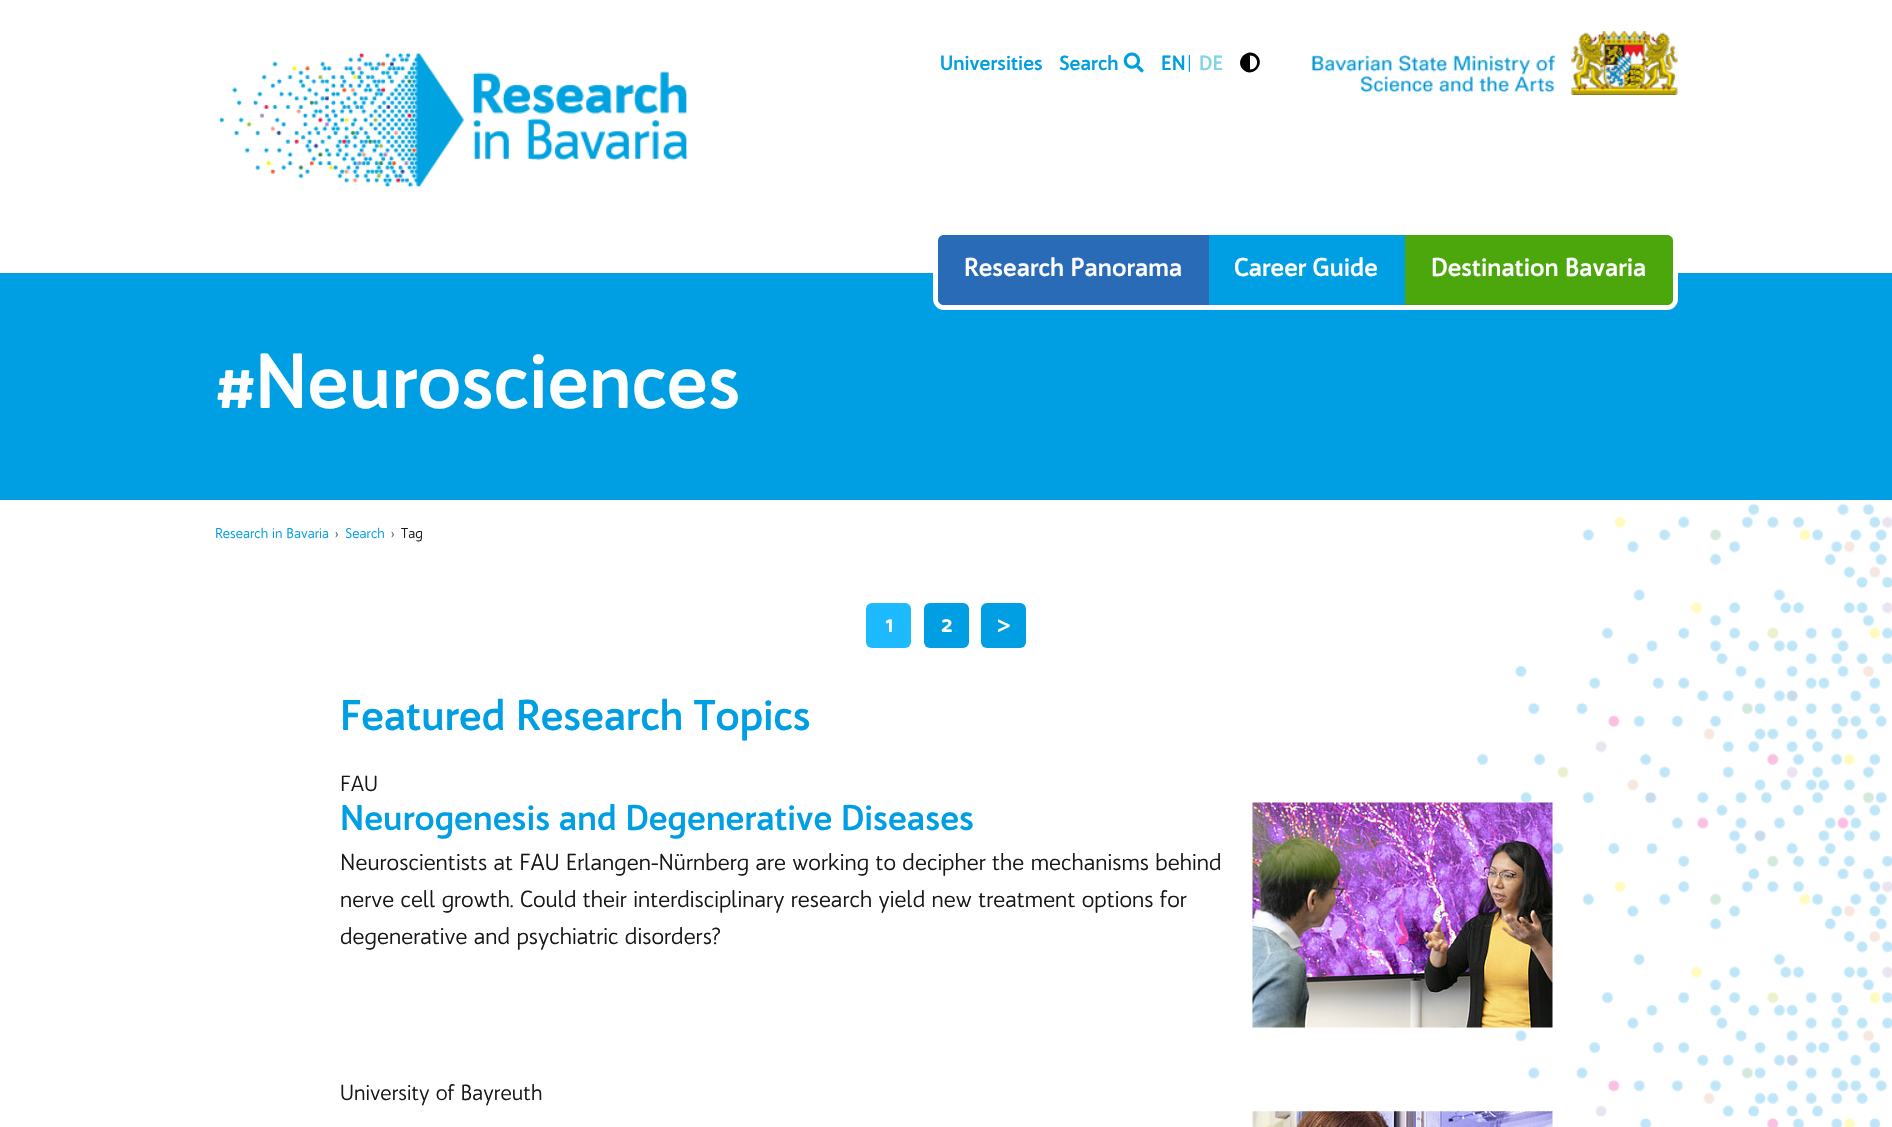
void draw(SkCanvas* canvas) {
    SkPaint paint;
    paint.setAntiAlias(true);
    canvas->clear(0xFFFFFFFF);
    canvas->drawImageRect(SkImages::DeferredFromEncodedData(SkData::MakeFromFileName("img1.png")), SkRect::MakeXYWH(219, 52, 469, 135), SkSamplingOptions());
    SkFont font1(fontMgr->matchFamilyStyle("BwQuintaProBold", SkFontStyle::Normal()), 20);
    font1.setSubpixel(true);
    paint.setColor(0xFF009EE3);
    canvas->drawString("Universities", 940, 70, font1, paint);
    canvas->drawString("Search", 1059, 70, font1, paint);
    canvas->drawImageRect(SkImages::DeferredFromEncodedData(SkData::MakeFromFileName("img2.png")), SkRect::MakeXYWH(1123, 52, 21, 21), SkSamplingOptions());
    canvas->drawString("EN", 1161, 70, font1, paint);
    SkFont font2(fontMgr->matchFamilyStyle("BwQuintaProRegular", SkFontStyle::Normal()), 20);
    font2.setSubpixel(true);
    canvas->drawString("|", 1187, 70, font2, paint);
    paint.setColor(0xFF83D4E9);
    canvas->drawString("DE", 1199, 70, font1, paint);
    paint.setColor(0xFF000000);
    canvas->drawPath(SkPathBuilder().moveTo(1243, 69.5f).cubicTo(1234, 60.5f, 1248, 46.5f, 1257, 55.5f).cubicTo(1266, 64.5f, 1252, 78.5f, 1243, 69.5f).close().moveTo(1250, 69.5f).cubicTo(1259.5f, 69.5f, 1259.5f, 55.5f, 1250, 55.5f).close().detach(), paint);
    canvas->drawImageRect(SkImages::DeferredFromEncodedData(SkData::MakeFromFileName("img3.png")), SkRect::MakeXYWH(1312, 31, 366, 64), SkSamplingOptions());
    paint.setColor(0xFF009EE3);
    canvas->drawRect(SkRect::MakeXYWH(0, 273, 1892, 227), paint);
    paint.setStyle(SkPaint::kStroke_Style);
    paint.setStrokeWidth(5);
    paint.setColor(0xFFFFFFFF);
    canvas->drawRoundRect(SkRect::MakeXYWH(935.5f, 232.5f, 740, 75), 8.5f, 8.5f, paint);
    paint.setStyle(SkPaint::kFill_Style);
    paint.setColor(0xFF2A6BB7);
    canvas->drawPath(SkPathBuilder().moveTo(944, 235).lineTo(1209, 235).lineTo(1209, 305).lineTo(944, 305).cubicTo(940.5f, 305, 938, 302.5f, 938, 299).lineTo(938, 241).cubicTo(938, 237.5f, 940.5f, 235, 944, 235).close().detach(), paint);
    SkFont font3(fontMgr->matchFamilyStyle("BwQuintaProBold", SkFontStyle::Normal()), 25);
    font3.setSubpixel(true);
    paint.setColor(0xFFFFFFFF);
    canvas->drawString("Research Panorama", 964, 276, font3, paint);
    paint.setColor(0xFF009EE3);
    canvas->drawRect(SkRect::MakeXYWH(1209, 235, 196, 38), paint);
    paint.setColor(0xFFFFFFFF);
    canvas->drawString("Career Guide", 1234, 276, font3, paint);
    paint.setColor(0xFF4CA70C);
    canvas->drawPath(SkPathBuilder().moveTo(1405, 235).lineTo(1667, 235).cubicTo(1670.5f, 235, 1673, 237.5f, 1673, 241).lineTo(1673, 299).cubicTo(1673, 302.5f, 1670.5f, 305, 1667, 305).lineTo(1405, 305).close().detach(), paint);
    paint.setColor(0xFFFFFFFF);
    canvas->drawString("Destination Bavaria", 1431, 276, font3, paint);
    SkFont font4(fontMgr->matchFamilyStyle("BwQuintaProBold", SkFontStyle::Normal()), 75.75f);
    font4.setSubpixel(true);
    canvas->drawString("#Neurosciences", 215, 408, font4, paint);
    canvas->drawImageRect(SkImages::DeferredFromEncodedData(SkData::MakeFromFileName("img4.png")), SkRect::MakeXYWH(1477, 503, 415, 624), SkSamplingOptions());
    SkFont font5(fontMgr->matchFamilyStyle("BwQuintaProRegular", SkFontStyle::Normal()), 13.75f);
    font5.setSubpixel(true);
    paint.setColor(0xFF009EE3);
    canvas->drawString("Research in Bavaria", 215, 538, font5, paint);
    paint.setColor(0xFF666666);
    canvas->drawString("›", 335, 538, font5, paint);
    paint.setColor(0xFF009EE3);
    canvas->drawString("Search", 345, 538, font5, paint);
    paint.setColor(0xFF666666);
    canvas->drawString("›", 391, 538, font5, paint);
    paint.setColor(0xFF181715);
    canvas->drawString("Tag", 401, 538, font5, paint);
    paint.setColor(0xFF1DBAFF);
    canvas->drawRoundRect(SkRect::MakeXYWH(866, 603, 45, 45), 6, 6, paint);
    paint.setColor(0xFFFFFFFF);
    canvas->drawString("1", 885, 632, font3, paint);
    paint.setColor(0xFF009EE3);
    canvas->drawRoundRect(SkRect::MakeXYWH(924, 603, 45, 45), 6, 6, paint);
    paint.setColor(0xFFFFFFFF);
    canvas->drawString("2", 941, 632, font3, paint);
    paint.setColor(0xFF009EE3);
    canvas->drawRoundRect(SkRect::MakeXYWH(981, 603, 45, 45), 6, 6, paint);
    paint.setColor(0xFFFFFFFF);
    canvas->drawString(">", 997, 632, font3, paint);
    SkFont font6(fontMgr->matchFamilyStyle("BwQuintaProBold", SkFontStyle::Normal()), 41.75f);
    font6.setSubpixel(true);
    paint.setColor(0xFF009EE3);
    canvas->drawString("Featured Research Topics", 340, 730, font6, paint);
    SkFont font7(fontMgr->matchFamilyStyle("BwQuintaProRegular", SkFontStyle::Normal()), 21.25f);
    font7.setSubpixel(true);
    paint.setColor(0xFF181715);
    canvas->drawString("FAU", 340, 791, font7, paint);
    SkFont font8(fontMgr->matchFamilyStyle("BwQuintaProBold", SkFontStyle::Normal()), 34.75f);
    font8.setSubpixel(true);
    paint.setColor(0xFF009EE3);
    canvas->drawString("Neurogenesis and Degenerative Diseases", 340, 830, font8, paint);
    SkFont font9(fontMgr->matchFamilyStyle("BwQuintaProRegular", SkFontStyle::Normal()), 22.5f);
    font9.setSubpixel(true);
    paint.setColor(0xFF181715);
    canvas->drawString("Neuroscientists at FAU Erlangen-Nürnberg are working to decipher the mechanisms behind", 340, 870, font9, paint);
    canvas->drawString("nerve cell growth. Could their interdisciplinary research yield new treatment options for", 340, 907, font9, paint);
    canvas->drawString("degenerative and psychiatric disorders?", 340, 944, font9, paint);
    canvas->drawImageRect(SkImages::DeferredFromEncodedData(SkData::MakeFromFileName("img5.png")), SkRect::MakeXYWH(1252, 802, 301, 226), SkSamplingOptions());
    canvas->drawString("University of Bayreuth", 340, 1100, font7, paint);
    canvas->drawImageRect(SkImages::DeferredFromEncodedData(SkData::MakeFromFileName("img6.png")), SkRect::MakeXYWH(1252, 1111, 301, 16), SkSamplingOptions());
}
